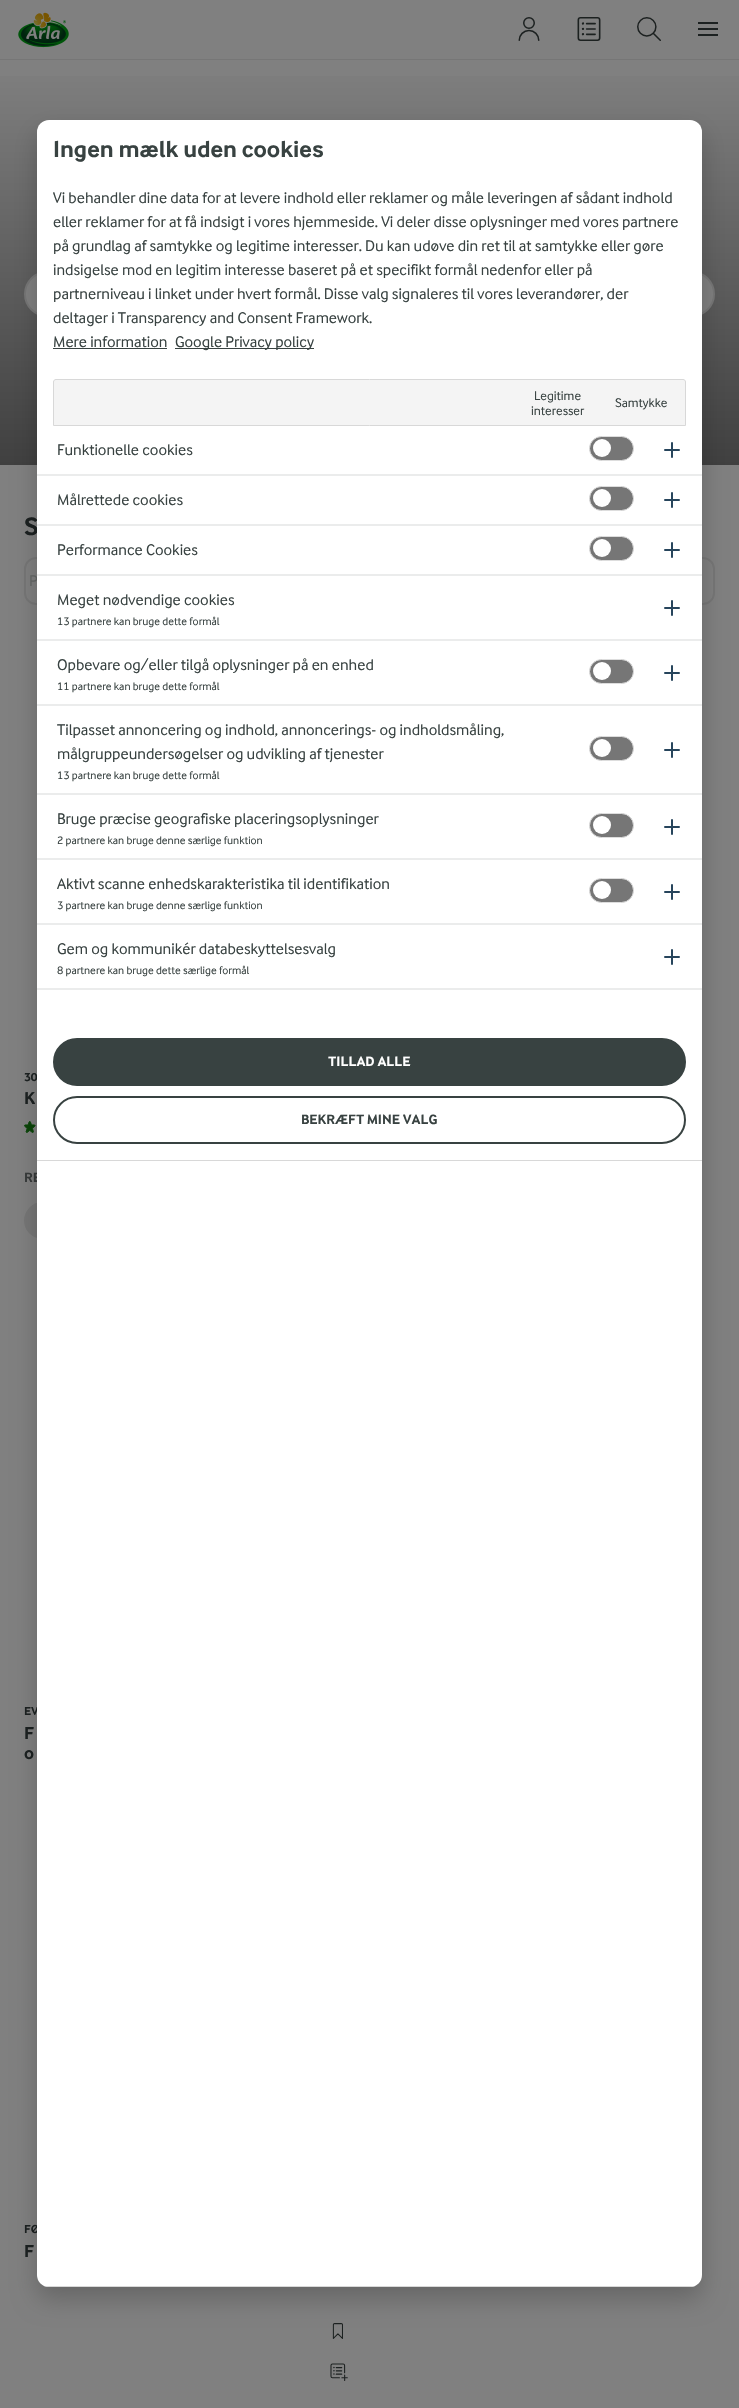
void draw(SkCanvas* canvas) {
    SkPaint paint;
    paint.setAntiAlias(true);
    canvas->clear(0xFF808080);
    canvas->drawImageRect(SkImages::DeferredFromEncodedData(SkData::MakeFromFileName("img1.png")), SkRect::MakeXYWH(18, 12, 51, 36), SkSamplingOptions());
    canvas->drawImageRect(SkImages::DeferredFromEncodedData(SkData::MakeFromFileName("img2.png")), SkRect::MakeXYWH(518, 17, 22, 24), SkSamplingOptions());
    canvas->drawImageRect(SkImages::DeferredFromEncodedData(SkData::MakeFromFileName("img3.png")), SkRect::MakeXYWH(577, 17, 24, 24), SkSamplingOptions());
    canvas->drawImageRect(SkImages::DeferredFromEncodedData(SkData::MakeFromFileName("img4.png")), SkRect::MakeXYWH(637, 17, 24, 24), SkSamplingOptions());
    paint.setColor(0xFF1C2121);
    canvas->drawRect(SkRect::MakeXYWH(698, 22, 20, 2), paint);
    canvas->drawRect(SkRect::MakeXYWH(698, 28, 20, 2), paint);
    canvas->drawRect(SkRect::MakeXYWH(698, 34, 20, 2), paint);
    paint.setColor(0xFF767676);
    canvas->drawRect(SkRect::MakeXYWH(0, 59, 739, 1), paint);
    {
        const SkColor colors[] = {0xFF404040, 0xFF808080};
        const float stops[] = {0, 1};
        const SkPoint ends[] = {{370, 465}, {370, 60}};
        paint.setShader(SkGradientShader::MakeLinear(ends, colors, stops, 2, SkTileMode::kClamp));
        paint.setAlpha(255);
    }
    canvas->drawRect(SkRect::MakeXYWH(0, 76, 739, 389), paint);
    paint.setShader(nullptr);
    paint.setColor(0xFF808080);
    canvas->drawRoundRect(SkRect::MakeXYWH(25, 272, 689, 44), 22, 22, paint);
    paint.setStyle(SkPaint::kStroke_Style);
    paint.setStrokeWidth(2);
    paint.setColor(0xFF767676);
    canvas->drawRoundRect(SkRect::MakeXYWH(25, 272, 689, 44), 22, 22, paint);
    SkFont font1(fontMgr->matchFamilyStyle("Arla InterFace", SkFontStyle::Bold()), 26);
    font1.setSubpixel(true);
    paint.setStyle(SkPaint::kFill_Style);
    paint.setColor(0xFF1C2121);
    canvas->drawString("S", 24, 535, font1, paint);
    paint.setStyle(SkPaint::kStroke_Style);
    paint.setColor(0xFF767676);
    canvas->drawRoundRect(SkRect::MakeXYWH(25, 558, 689, 46), 11, 11, paint);
    SkFont font2(fontMgr->matchFamilyStyle("Arla InterFace", SkFontStyle::Normal()), 16);
    font2.setSubpixel(true);
    paint.setStyle(SkPaint::kFill_Style);
    paint.setColor(0xFF656766);
    canvas->drawString("P", 29, 586, font2, paint);
    SkFont font3(fontMgr->matchFamilyStyle("Arla InterFace", SkFontStyle::Bold()), 12);
    font3.setSubpixel(true);
    paint.setColor(0xFF1C2121);
    canvas->drawString("30", 24, 1081, font3, paint);
    SkFont font4(fontMgr->matchFamilyStyle("Arla InterFace", SkFontStyle::Bold()), 18);
    font4.setSubpixel(true);
    canvas->drawString("K", 24, 1104, font4, paint);
    canvas->drawImageRect(SkImages::DeferredFromEncodedData(SkData::MakeFromFileName("img5.png")), SkRect::MakeXYWH(24, 1121, 12, 12), SkSamplingOptions());
    canvas->drawImageRect(SkImages::DeferredFromEncodedData(SkData::MakeFromFileName("img6.png")), SkRect::MakeXYWH(24, 1121, 12, 12), SkSamplingOptions());
    SkFont font5(fontMgr->matchFamilyStyle("Arla InterFace", SkFontStyle::Bold()), 14);
    font5.setSubpixel(true);
    paint.setColor(0xFF373A3A);
    canvas->drawString("RE", 24, 1182, font5, paint);
    paint.setColor(0xFF767676);
    canvas->drawRoundRect(SkRect::MakeXYWH(25, 1203, 166, 35), 17.5f, 17.5f, paint);
    paint.setStyle(SkPaint::kStroke_Style);
    canvas->drawRoundRect(SkRect::MakeXYWH(25, 1203, 166, 35), 17.5f, 17.5f, paint);
    paint.setStyle(SkPaint::kFill_Style);
    paint.setColor(0xFF1C2121);
    canvas->drawString("EV", 24, 1715, font3, paint);
    canvas->drawString("F", 24, 1739, font4, paint);
    canvas->drawString("o", 24, 1759, font4, paint);
    canvas->drawString("FØ", 24, 2233, font3, paint);
    canvas->drawString("F", 24, 2257, font4, paint);
    canvas->drawImageRect(SkImages::DeferredFromEncodedData(SkData::MakeFromFileName("img7.png")), SkRect::MakeXYWH(332, 2323, 11, 16), SkSamplingOptions());
    canvas->drawImageRect(SkImages::DeferredFromEncodedData(SkData::MakeFromFileName("img8.png")), SkRect::MakeXYWH(330, 2363, 18, 18), SkSamplingOptions());
    paint.setColor(0x33000000);
    paint.setMaskFilter(SkMaskFilter::MakeBlur(kNormal_SkBlurStyle, 12));
    canvas->drawRoundRect(SkRect::MakeXYWH(37, 132, 665, 2167), 12, 12, paint);
    paint.setMaskFilter(nullptr);
    paint.setColor(0xFFFFFFFF);
    canvas->drawRoundRect(SkRect::MakeXYWH(37, 120, 665, 2167), 12, 12, paint);
    SkFont font6(fontMgr->matchFamilyStyle("Arla InterFace", SkFontStyle::Bold()), 24);
    font6.setSubpixel(true);
    paint.setColor(0xFF384241);
    canvas->drawString("Ingen mælk uden cookies", 53, 157, font6, paint);
    canvas->drawString("Vi behandler dine data for at levere indhold eller reklamer og måle leveringen af sådant indhold", 53, 203, font2, paint);
    canvas->drawString("eller reklamer for at få indsigt i vores hjemmeside. Vi deler disse oplysninger med vores partnere", 53, 227, font2, paint);
    canvas->drawString("på grundlag af samtykke og legitime interesser. Du kan udøve din ret til at samtykke eller gøre", 53, 251, font2, paint);
    canvas->drawString("indsigelse mod en legitim interesse baseret på et specifikt formål nedenfor eller på", 53, 275, font2, paint);
    canvas->drawString("partnerniveau i linket under hvert formål. Disse valg signaleres til vores leverandører, der", 53, 299, font2, paint);
    canvas->drawString("deltager i Transparency and Consent Framework.", 53, 323, font2, paint);
    canvas->drawString("Mere information", 53, 347, font2, paint);
    canvas->drawRect(SkRect::MakeXYWH(53, 348, 114, 1), paint);
    canvas->drawRect(SkRect::MakeXYWH(175, 348, 139, 1), paint);
    canvas->drawString("Google Privacy policy", 175, 347, font2, paint);
    paint.setColor(0xFFF4F4F4);
    canvas->drawPath(SkPathBuilder().moveTo(56, 379.5f).lineTo(683, 379.5f).cubicTo(684.5f, 379.5f, 685.5f, 380.5f, 685.5f, 382).lineTo(685.5f, 425.5f).lineTo(53.5f, 425.5f).lineTo(53.5f, 382).cubicTo(53.5f, 380.5f, 54.5f, 379.5f, 56, 379.5f).close().detach(), paint);
    paint.setStyle(SkPaint::kStroke_Style);
    paint.setStrokeWidth(1);
    paint.setColor(0xFFD8D8D8);
    canvas->drawPath(SkPathBuilder().moveTo(56, 379.5f).lineTo(683, 379.5f).cubicTo(684.5f, 379.5f, 685.5f, 380.5f, 685.5f, 382).lineTo(685.5f, 425.5f).lineTo(53.5f, 425.5f).lineTo(53.5f, 382).cubicTo(53.5f, 380.5f, 54.5f, 379.5f, 56, 379.5f).close().detach(), paint);
    SkFont font7(fontMgr->matchFamilyStyle("Arla InterFace", SkFontStyle::Normal()), 13);
    font7.setSubpixel(true);
    paint.setStyle(SkPaint::kFill_Style);
    paint.setColor(0xFF384241);
    canvas->drawString("Legitime", 534, 400, font7, paint);
    canvas->drawString("interesser", 531, 415, font7, paint);
    canvas->drawString("Samtykke", 615, 407, font7, paint);
    paint.setColor(0xFFEBECEC);
    canvas->drawRect(SkRect::MakeXYWH(37, 474, 665, 2), paint);
    paint.setColor(0xFF384241);
    canvas->drawString("Funktionelle cookies", 57, 455, font2, paint);
    paint.setColor(0xFF767676);
    canvas->drawRoundRect(SkRect::MakeXYWH(589.5f, 436.5f, 44, 24), 12, 12, paint);
    paint.setStyle(SkPaint::kStroke_Style);
    paint.setColor(0xFFDDDDDD);
    canvas->drawRoundRect(SkRect::MakeXYWH(589.5f, 436.5f, 44, 24), 12, 12, paint);
    paint.setStyle(SkPaint::kFill_Style);
    paint.setColor(0xFFFFFFFF);
    canvas->drawCircle(602, 448, 9, paint);
    paint.setColor(0xFF27455C);
    canvas->drawRoundRect(SkRect::MakeXYWH(671, 442, 2, 16), 1, 1, paint);
    canvas->drawRoundRect(SkRect::MakeXYWH(664, 449, 16, 2), 1, 1, paint);
    paint.setColor(0xFFEBECEC);
    canvas->drawRect(SkRect::MakeXYWH(37, 524, 665, 2), paint);
    paint.setColor(0xFF384241);
    canvas->drawString("Målrettede cookies", 57, 505, font2, paint);
    paint.setColor(0xFF767676);
    canvas->drawRoundRect(SkRect::MakeXYWH(589.5f, 486.5f, 44, 24), 12, 12, paint);
    paint.setStyle(SkPaint::kStroke_Style);
    paint.setColor(0xFFDDDDDD);
    canvas->drawRoundRect(SkRect::MakeXYWH(589.5f, 486.5f, 44, 24), 12, 12, paint);
    paint.setStyle(SkPaint::kFill_Style);
    paint.setColor(0xFFFFFFFF);
    canvas->drawCircle(602, 498, 9, paint);
    paint.setColor(0xFF27455C);
    canvas->drawRoundRect(SkRect::MakeXYWH(671, 492, 2, 16), 1, 1, paint);
    canvas->drawRoundRect(SkRect::MakeXYWH(664, 499, 16, 2), 1, 1, paint);
    paint.setColor(0xFFEBECEC);
    canvas->drawRect(SkRect::MakeXYWH(37, 574, 665, 2), paint);
    paint.setColor(0xFF384241);
    canvas->drawString("Performance Cookies", 57, 555, font2, paint);
    paint.setColor(0xFF767676);
    canvas->drawRoundRect(SkRect::MakeXYWH(589.5f, 536.5f, 44, 24), 12, 12, paint);
    paint.setStyle(SkPaint::kStroke_Style);
    paint.setColor(0xFFDDDDDD);
    canvas->drawRoundRect(SkRect::MakeXYWH(589.5f, 536.5f, 44, 24), 12, 12, paint);
    paint.setStyle(SkPaint::kFill_Style);
    paint.setColor(0xFFFFFFFF);
    canvas->drawCircle(602, 548, 9, paint);
    paint.setColor(0xFF27455C);
    canvas->drawRoundRect(SkRect::MakeXYWH(671, 542, 2, 16), 1, 1, paint);
    canvas->drawRoundRect(SkRect::MakeXYWH(664, 549, 16, 2), 1, 1, paint);
    paint.setColor(0xFFEBECEC);
    canvas->drawRect(SkRect::MakeXYWH(37, 639, 665, 2), paint);
    paint.setColor(0xFF384241);
    canvas->drawString("Meget nødvendige cookies", 57, 605, font2, paint);
    SkFont font8(fontMgr->matchFamilyStyle("Arla InterFace", SkFontStyle::Normal()), 11.25f);
    font8.setSubpixel(true);
    canvas->drawString("13 partnere kan bruge dette formål", 57, 625, font8, paint);
    paint.setColor(0xFF27455C);
    canvas->drawRoundRect(SkRect::MakeXYWH(671, 600, 2, 16), 1, 1, paint);
    canvas->drawRoundRect(SkRect::MakeXYWH(664, 607, 16, 2), 1, 1, paint);
    paint.setColor(0xFFEBECEC);
    canvas->drawRect(SkRect::MakeXYWH(37, 704, 665, 2), paint);
    paint.setColor(0xFF384241);
    canvas->drawString("Opbevare og/eller tilgå oplysninger på en enhed", 57, 670, font2, paint);
    canvas->drawString("11 partnere kan bruge dette formål", 57, 690, font8, paint);
    paint.setColor(0xFF767676);
    canvas->drawRoundRect(SkRect::MakeXYWH(589.5f, 659.5f, 44, 24), 12, 12, paint);
    paint.setStyle(SkPaint::kStroke_Style);
    paint.setColor(0xFFDDDDDD);
    canvas->drawRoundRect(SkRect::MakeXYWH(589.5f, 659.5f, 44, 24), 12, 12, paint);
    paint.setStyle(SkPaint::kFill_Style);
    paint.setColor(0xFFFFFFFF);
    canvas->drawCircle(602, 671, 9, paint);
    paint.setColor(0xFF27455C);
    canvas->drawRoundRect(SkRect::MakeXYWH(671, 665, 2, 16), 1, 1, paint);
    canvas->drawRoundRect(SkRect::MakeXYWH(664, 672, 16, 2), 1, 1, paint);
    paint.setColor(0xFFEBECEC);
    canvas->drawRect(SkRect::MakeXYWH(37, 793, 665, 2), paint);
    paint.setColor(0xFF384241);
    canvas->drawString("Tilpasset annoncering og indhold, annoncerings- og indholdsmåling,", 57, 735, font2, paint);
    canvas->drawString("målgruppeundersøgelser og udvikling af tjenester", 57, 759, font2, paint);
    canvas->drawString("13 partnere kan bruge dette formål", 57, 779, font8, paint);
    paint.setColor(0xFF767676);
    canvas->drawRoundRect(SkRect::MakeXYWH(589.5f, 736.5f, 44, 24), 12, 12, paint);
    paint.setStyle(SkPaint::kStroke_Style);
    paint.setColor(0xFFDDDDDD);
    canvas->drawRoundRect(SkRect::MakeXYWH(589.5f, 736.5f, 44, 24), 12, 12, paint);
    paint.setStyle(SkPaint::kFill_Style);
    paint.setColor(0xFFFFFFFF);
    canvas->drawCircle(602, 748, 9, paint);
    paint.setColor(0xFF27455C);
    canvas->drawRoundRect(SkRect::MakeXYWH(671, 742, 2, 16), 1, 1, paint);
    canvas->drawRoundRect(SkRect::MakeXYWH(664, 749, 16, 2), 1, 1, paint);
    paint.setColor(0xFFEBECEC);
    canvas->drawRect(SkRect::MakeXYWH(37, 858, 665, 2), paint);
    paint.setColor(0xFF384241);
    canvas->drawString("Bruge præcise geografiske placeringsoplysninger", 57, 824, font2, paint);
    canvas->drawString("2 partnere kan bruge denne særlige funktion", 57, 844, font8, paint);
    paint.setColor(0xFF767676);
    canvas->drawRoundRect(SkRect::MakeXYWH(589.5f, 813.5f, 44, 24), 12, 12, paint);
    paint.setStyle(SkPaint::kStroke_Style);
    paint.setColor(0xFFDDDDDD);
    canvas->drawRoundRect(SkRect::MakeXYWH(589.5f, 813.5f, 44, 24), 12, 12, paint);
    paint.setStyle(SkPaint::kFill_Style);
    paint.setColor(0xFFFFFFFF);
    canvas->drawCircle(602, 825, 9, paint);
    paint.setColor(0xFF27455C);
    canvas->drawRoundRect(SkRect::MakeXYWH(671, 819, 2, 16), 1, 1, paint);
    canvas->drawRoundRect(SkRect::MakeXYWH(664, 826, 16, 2), 1, 1, paint);
    paint.setColor(0xFFEBECEC);
    canvas->drawRect(SkRect::MakeXYWH(37, 923, 665, 2), paint);
    paint.setColor(0xFF384241);
    canvas->drawString("Aktivt scanne enhedskarakteristika til identifikation", 57, 889, font2, paint);
    canvas->drawString("3 partnere kan bruge denne særlige funktion", 57, 909, font8, paint);
    paint.setColor(0xFF767676);
    canvas->drawRoundRect(SkRect::MakeXYWH(589.5f, 878.5f, 44, 24), 12, 12, paint);
    paint.setStyle(SkPaint::kStroke_Style);
    paint.setColor(0xFFDDDDDD);
    canvas->drawRoundRect(SkRect::MakeXYWH(589.5f, 878.5f, 44, 24), 12, 12, paint);
    paint.setStyle(SkPaint::kFill_Style);
    paint.setColor(0xFFFFFFFF);
    canvas->drawCircle(602, 890, 9, paint);
    paint.setColor(0xFF27455C);
    canvas->drawRoundRect(SkRect::MakeXYWH(671, 884, 2, 16), 1, 1, paint);
    canvas->drawRoundRect(SkRect::MakeXYWH(664, 891, 16, 2), 1, 1, paint);
    paint.setColor(0xFFEBECEC);
    canvas->drawRect(SkRect::MakeXYWH(37, 988, 665, 2), paint);
    paint.setColor(0xFF384241);
    canvas->drawString("Gem og kommunikér databeskyttelsesvalg", 57, 954, font2, paint);
    canvas->drawString("8 partnere kan bruge dette særlige formål", 57, 974, font8, paint);
    paint.setColor(0xFF27455C);
    canvas->drawRoundRect(SkRect::MakeXYWH(671, 949, 2, 16), 1, 1, paint);
    canvas->drawRoundRect(SkRect::MakeXYWH(664, 956, 16, 2), 1, 1, paint);
    paint.setColor(0xFF384241);
    canvas->drawRoundRect(SkRect::MakeXYWH(54, 1039, 631, 46), 23, 23, paint);
    paint.setStyle(SkPaint::kStroke_Style);
    paint.setStrokeWidth(2);
    canvas->drawRoundRect(SkRect::MakeXYWH(54, 1039, 631, 46), 23, 23, paint);
    paint.setStyle(SkPaint::kFill_Style);
    paint.setColor(0xFFFFFFFF);
    canvas->drawString("TILLAD ALLE", 328, 1066, font5, paint);
    paint.setStyle(SkPaint::kStroke_Style);
    paint.setColor(0xFF384241);
    canvas->drawRoundRect(SkRect::MakeXYWH(54, 1097, 631, 46), 23, 23, paint);
    paint.setStyle(SkPaint::kFill_Style);
    canvas->drawString("BEKRÆFT MINE VALG", 301, 1124, font5, paint);
    paint.setColor(0xFFD8D8D8);
    canvas->drawRect(SkRect::MakeXYWH(37, 1160, 665, 1), paint);
    canvas->save();
    canvas->clipPath(SkPathBuilder().moveTo(49, 120).lineTo(690, 120).cubicTo(696.5f, 120, 702, 125.5f, 702, 132).lineTo(702, 2275).cubicTo(702, 2281.5f, 696.5f, 2287, 690, 2287).lineTo(49, 2287).cubicTo(42.5f, 2287, 37, 2281.5f, 37, 2275).lineTo(37, 132).cubicTo(37, 125.5f, 42.5f, 120, 49, 120).close().detach(), true);
    canvas->drawRect(SkRect::MakeXYWH(37, 2286, 665, 1), paint);
    canvas->restore();
}
